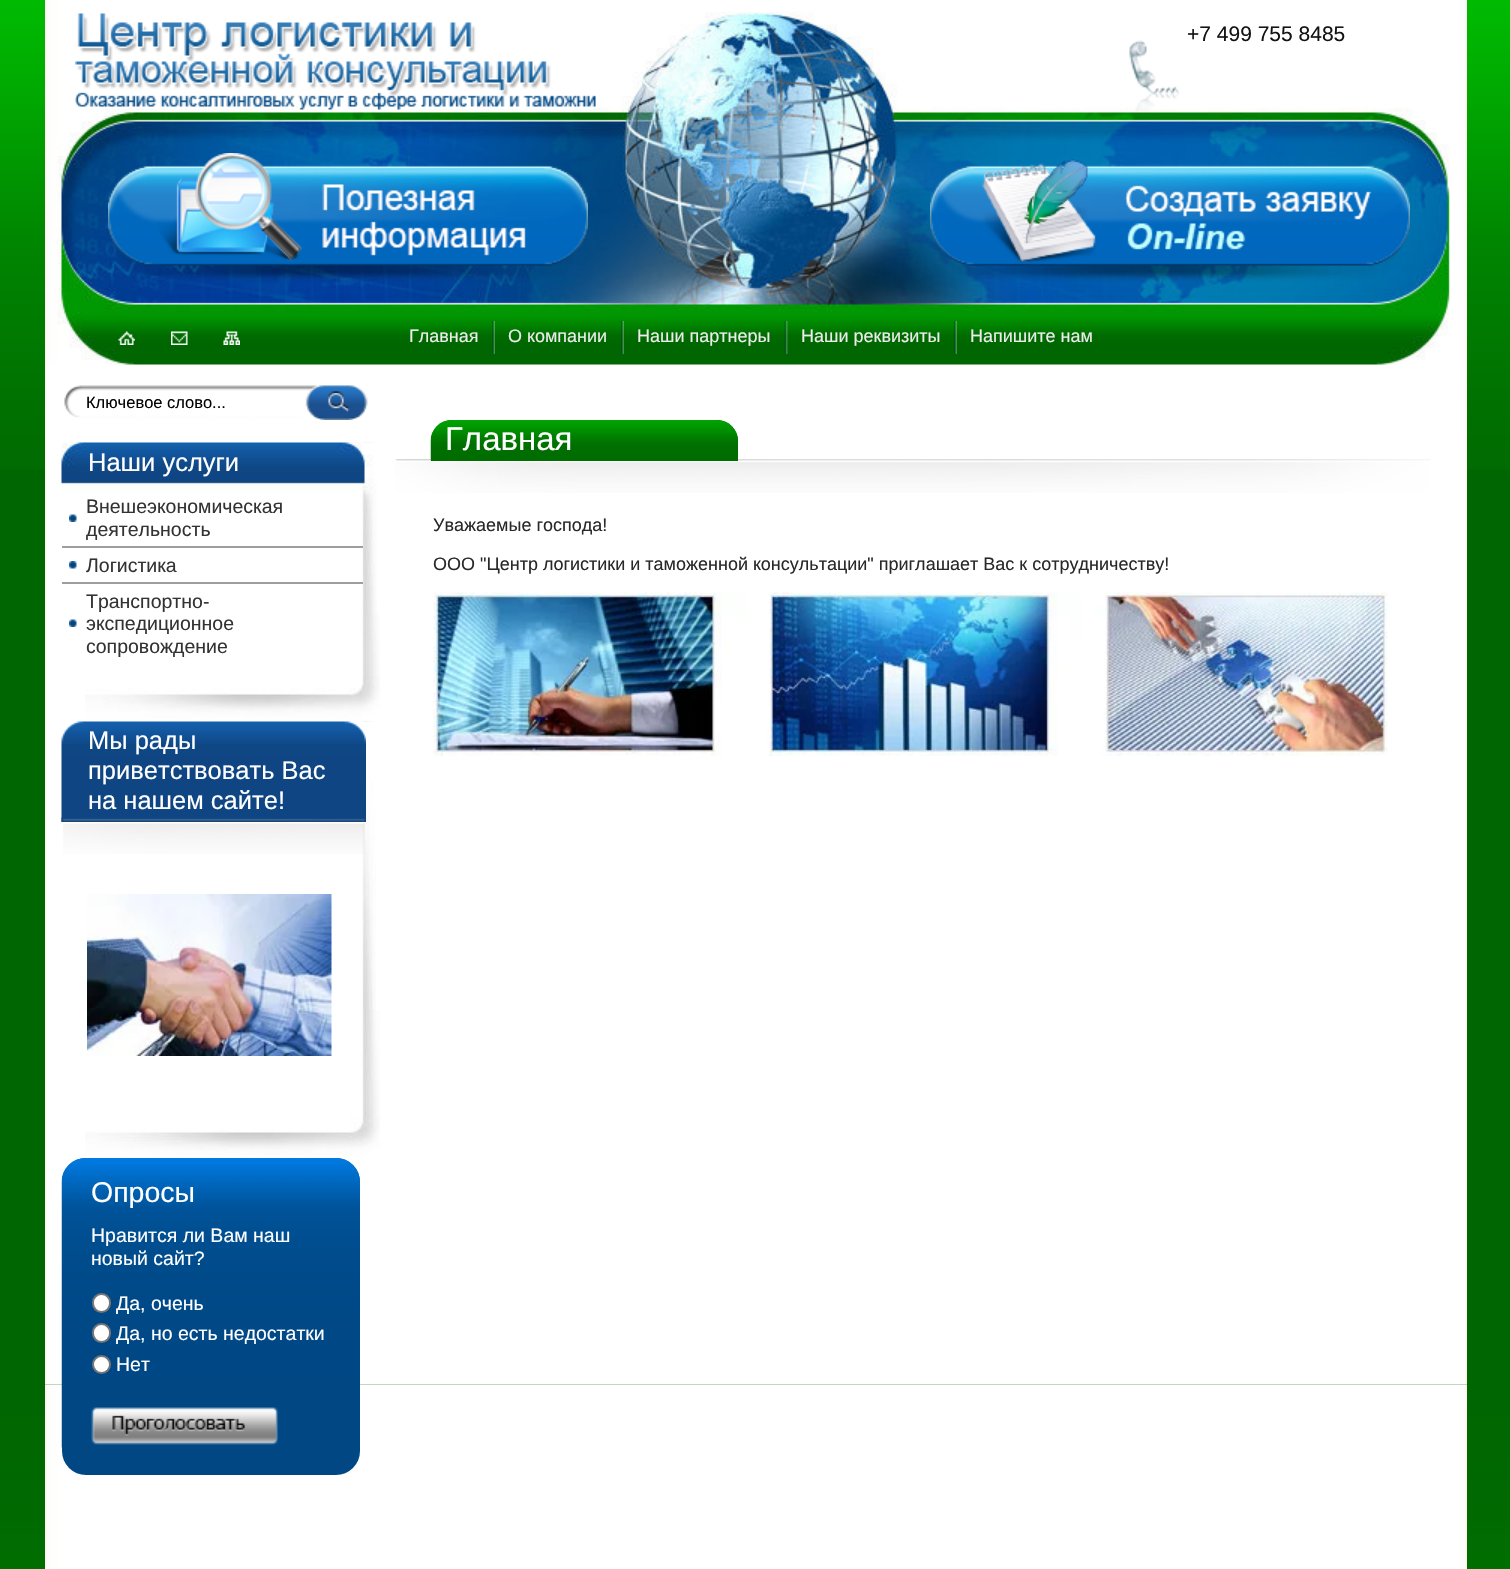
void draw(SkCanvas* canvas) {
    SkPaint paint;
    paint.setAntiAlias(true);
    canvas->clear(0xFF006601);
    canvas->drawImageRect(SkImages::DeferredFromEncodedData(SkData::MakeFromFileName("img1.png")), SkRect::MakeXYWH(0, 0, 1510, 470), SkSamplingOptions());
    canvas->drawImageRect(SkImages::DeferredFromEncodedData(SkData::MakeFromFileName("img2.png")), SkRect::MakeXYWH(45, 0, 1422, 1385), SkSamplingOptions());
    canvas->drawImageRect(SkImages::DeferredFromEncodedData(SkData::MakeFromFileName("img3.png")), SkRect::MakeXYWH(47, 0, 1418, 365), SkSamplingOptions());
    canvas->drawImageRect(SkImages::DeferredFromEncodedData(SkData::MakeFromFileName("img4.png")), SkRect::MakeXYWH(75, 13, 521, 97), SkSamplingOptions());
    canvas->drawImageRect(SkImages::DeferredFromEncodedData(SkData::MakeFromFileName("img5.png")), SkRect::MakeXYWH(1129, 40, 50, 72), SkSamplingOptions());
    SkFont font1(fontMgr->matchFamilyStyle("Liberation Sans", SkFontStyle::Normal()), 21);
    font1.setSubpixel(true);
    paint.setColor(0xFF131313);
    canvas->drawString("+7 499 755 8485", 1187, 41, font1, paint);
    canvas->drawImageRect(SkImages::DeferredFromEncodedData(SkData::MakeFromFileName("img6.png")), SkRect::MakeXYWH(108, 153, 480, 129), SkSamplingOptions());
    canvas->drawImageRect(SkImages::DeferredFromEncodedData(SkData::MakeFromFileName("img7.png")), SkRect::MakeXYWH(930, 159, 480, 123), SkSamplingOptions());
    canvas->drawImageRect(SkImages::DeferredFromEncodedData(SkData::MakeFromFileName("img8.png")), SkRect::MakeXYWH(118, 331, 17, 14), SkSamplingOptions());
    canvas->drawImageRect(SkImages::DeferredFromEncodedData(SkData::MakeFromFileName("img9.png")), SkRect::MakeXYWH(171, 331, 17, 14), SkSamplingOptions());
    canvas->drawImageRect(SkImages::DeferredFromEncodedData(SkData::MakeFromFileName("img10.png")), SkRect::MakeXYWH(223, 331, 17, 14), SkSamplingOptions());
    SkFont font2(fontMgr->matchFamilyStyle("Liberation Sans", SkFontStyle::Normal()), 18);
    font2.setSubpixel(true);
    paint.setColor(0xFFECECEC);
    canvas->drawString("Главная", 409, 342, font2, paint);
    canvas->drawImageRect(SkImages::DeferredFromEncodedData(SkData::MakeFromFileName("img11.png")), SkRect::MakeXYWH(492, 321, 3, 33), SkSamplingOptions());
    canvas->drawString("О компании", 508, 342, font2, paint);
    canvas->drawImageRect(SkImages::DeferredFromEncodedData(SkData::MakeFromFileName("img12.png")), SkRect::MakeXYWH(621, 321, 3, 33), SkSamplingOptions());
    canvas->drawString("Наши партнеры", 637, 342, font2, paint);
    canvas->drawImageRect(SkImages::DeferredFromEncodedData(SkData::MakeFromFileName("img13.png")), SkRect::MakeXYWH(784, 321, 4, 33), SkSamplingOptions());
    canvas->drawString("Наши реквизиты", 801, 342, font2, paint);
    canvas->drawImageRect(SkImages::DeferredFromEncodedData(SkData::MakeFromFileName("img12.png")), SkRect::MakeXYWH(954, 321, 3, 33), SkSamplingOptions());
    canvas->drawString("Напишите нам", 970, 342, font2, paint);
    canvas->drawImageRect(SkImages::DeferredFromEncodedData(SkData::MakeFromFileName("img14.png")), SkRect::MakeXYWH(64, 385, 304, 35), SkSamplingOptions());
    SkFont font3(fontMgr->matchFamilyStyle("Liberation Sans", SkFontStyle::Normal()), 16.5f);
    font3.setSubpixel(true);
    paint.setColor(0xFF030205);
    canvas->drawString("Ключевое слово...", 86, 408, font3, paint);
    canvas->drawImageRect(SkImages::DeferredFromEncodedData(SkData::MakeFromFileName("img15.png")), SkRect::MakeXYWH(362, 442, 14, 280), SkSamplingOptions());
    canvas->drawImageRect(SkImages::DeferredFromEncodedData(SkData::MakeFromFileName("img16.png")), SkRect::MakeXYWH(61, 442, 316, 171), SkSamplingOptions());
    SkFont font4(fontMgr->matchFamilyStyle("Liberation Sans", SkFontStyle::Normal()), 25.5f);
    font4.setSubpixel(true);
    paint.setColor(0xFFFFFFFF);
    canvas->drawString("Наши услуги", 88, 471, font4, paint);
    canvas->drawImageRect(SkImages::DeferredFromEncodedData(SkData::MakeFromFileName("img17.png")), SkRect::MakeXYWH(85, 613, 295, 109), SkSamplingOptions());
    canvas->drawImageRect(SkImages::DeferredFromEncodedData(SkData::MakeFromFileName("img18.png")), SkRect::MakeXYWH(69, 514, 8, 8), SkSamplingOptions());
    SkFont font5(fontMgr->matchFamilyStyle("Liberation Sans", SkFontStyle::Normal()), 19.5f);
    font5.setSubpixel(true);
    paint.setColor(0xFF333333);
    canvas->drawString("Внешеэкономическая", 86, 513, font5, paint);
    canvas->drawString("деятельность", 86, 536, font5, paint);
    paint.setColor(0xFF9E9E9E);
    canvas->drawRect(SkRect::MakeXYWH(62, 546, 301, 2), paint);
    canvas->drawImageRect(SkImages::DeferredFromEncodedData(SkData::MakeFromFileName("img19.png")), SkRect::MakeXYWH(69, 561, 8, 8), SkSamplingOptions());
    paint.setColor(0xFF333333);
    canvas->drawString("Логистика", 86, 572, font5, paint);
    paint.setColor(0xFF9E9E9E);
    canvas->drawRect(SkRect::MakeXYWH(62, 582, 301, 2), paint);
    canvas->drawImageRect(SkImages::DeferredFromEncodedData(SkData::MakeFromFileName("img18.png")), SkRect::MakeXYWH(69, 619, 8, 8), SkSamplingOptions());
    paint.setColor(0xFF333333);
    canvas->drawString("Транспортно-", 86, 608, font5, paint);
    canvas->drawString("экспедиционное", 86, 630, font5, paint);
    canvas->drawString("сопровождение", 86, 653, font5, paint);
    canvas->drawImageRect(SkImages::DeferredFromEncodedData(SkData::MakeFromFileName("img20.png")), SkRect::MakeXYWH(362, 721, 13, 1), SkSamplingOptions());
    canvas->drawImageRect(SkImages::DeferredFromEncodedData(SkData::MakeFromFileName("img21.png")), SkRect::MakeXYWH(362, 721, 14, 289), SkSamplingOptions());
    canvas->drawImageRect(SkImages::DeferredFromEncodedData(SkData::MakeFromFileName("img22.png")), SkRect::MakeXYWH(85, 1010, 295, 148), SkSamplingOptions());
    canvas->drawImageRect(SkImages::DeferredFromEncodedData(SkData::MakeFromFileName("img23.png")), SkRect::MakeXYWH(61, 721, 305, 101), SkSamplingOptions());
    canvas->drawImageRect(SkImages::DeferredFromEncodedData(SkData::MakeFromFileName("img24.png")), SkRect::MakeXYWH(61, 817, 304, 5), SkSamplingOptions());
    paint.setColor(0xFFFFFFFF);
    canvas->drawString("Мы рады", 88, 749, font4, paint);
    canvas->drawString("приветствовать Вас", 88, 779, font4, paint);
    canvas->drawString("на нашем сайте!", 88, 809, font4, paint);
    canvas->drawImageRect(SkImages::DeferredFromEncodedData(SkData::MakeFromFileName("img25.png")), SkRect::MakeXYWH(63, 823, 302, 31), SkSamplingOptions());
    canvas->drawImageRect(SkImages::DeferredFromEncodedData(SkData::MakeFromFileName("img26.png")), SkRect::MakeXYWH(87, 894, 245, 162), SkSamplingOptions());
    canvas->drawImageRect(SkImages::DeferredFromEncodedData(SkData::MakeFromFileName("img32.png")), SkRect::MakeXYWH(0, 1384, 1510, 185), SkSamplingOptions());
    canvas->drawImageRect(SkImages::DeferredFromEncodedData(SkData::MakeFromFileName("img33.png")), SkRect::MakeXYWH(45, 1384, 1422, 185), SkSamplingOptions());
    paint.setColor(0xFF004784);
    canvas->drawRoundRect(SkRect::MakeXYWH(62, 1158, 298, 317), 24, 24, paint);
    canvas->drawImageRect(SkImages::DeferredFromEncodedData(SkData::MakeFromFileName("img27.png")), SkRect::MakeXYWH(61, 1158, 299, 290), SkSamplingOptions());
    SkFont font6(fontMgr->matchFamilyStyle("Liberation Sans", SkFontStyle::Normal()), 28.5f);
    font6.setSubpixel(true);
    paint.setColor(0xFFFFFFFF);
    canvas->drawString("Опросы", 91, 1202, font6, paint);
    canvas->drawString("Нравится ли Вам наш", 91, 1242, font5, paint);
    canvas->drawString("новый сайт?", 91, 1265, font5, paint);
    canvas->drawRoundRect(SkRect::MakeXYWH(93, 1294, 17, 18), 8.5f, 8.5f, paint);
    paint.setStyle(SkPaint::kStroke_Style);
    paint.setStrokeWidth(2);
    paint.setColor(0xFF767676);
    canvas->drawRoundRect(SkRect::MakeXYWH(93, 1294, 17, 18), 8.5f, 8.5f, paint);
    paint.setStyle(SkPaint::kFill_Style);
    paint.setColor(0xFFFFFFFF);
    canvas->drawString("Да, очень", 116, 1310, font5, paint);
    canvas->drawRoundRect(SkRect::MakeXYWH(93, 1324, 17, 18), 8.5f, 8.5f, paint);
    paint.setStyle(SkPaint::kStroke_Style);
    paint.setColor(0xFF767676);
    canvas->drawRoundRect(SkRect::MakeXYWH(93, 1324, 17, 18), 8.5f, 8.5f, paint);
    paint.setStyle(SkPaint::kFill_Style);
    paint.setColor(0xFFFFFFFF);
    canvas->drawString("Да, но есть недостатки", 116, 1340, font5, paint);
    canvas->drawCircle(101.5f, 1364.5f, 8.5f, paint);
    paint.setStyle(SkPaint::kStroke_Style);
    paint.setColor(0xFF767676);
    canvas->drawCircle(101.5f, 1364.5f, 8.5f, paint);
    paint.setStyle(SkPaint::kFill_Style);
    paint.setColor(0xFFFFFFFF);
    canvas->drawString("Нет", 116, 1371, font5, paint);
    canvas->drawImageRect(SkImages::DeferredFromEncodedData(SkData::MakeFromFileName("img28.png")), SkRect::MakeXYWH(91, 1407, 187, 38), SkSamplingOptions());
    canvas->drawImageRect(SkImages::DeferredFromEncodedData(SkData::MakeFromFileName("img30.png")), SkRect::MakeXYWH(395, 459, 1036, 34), SkSamplingOptions());
    paint.setColor(0xFF006D01);
    canvas->drawPath(SkPathBuilder().moveTo(452, 420).lineTo(717, 420).cubicTo(728.5f, 420, 738, 429.5f, 738, 441).lineTo(738, 461).lineTo(431, 461).lineTo(431, 441).cubicTo(431, 429.5f, 440.5f, 420, 452, 420).close().detach(), paint);
    canvas->drawImageRect(SkImages::DeferredFromEncodedData(SkData::MakeFromFileName("img29.png")), SkRect::MakeXYWH(430, 420, 308, 41), SkSamplingOptions());
    SkFont font7(fontMgr->matchFamilyStyle("Liberation Sans", SkFontStyle::Normal()), 33);
    font7.setSubpixel(true);
    paint.setColor(0xFFFFFFFF);
    canvas->drawString("Главная", 445, 450, font7, paint);
    paint.setColor(0xFF292929);
    canvas->drawString("Уважаемые господа!", 433, 531, font2, paint);
    canvas->drawString("ООО \"Центр логистики и таможенной консультации\" приглашает Вас к сотрудничеству!", 433, 570, font2, paint);
    canvas->drawImageRect(SkImages::DeferredFromEncodedData(SkData::MakeFromFileName("img31.png")), SkRect::MakeXYWH(433, 592, 955, 164), SkSamplingOptions());
}
